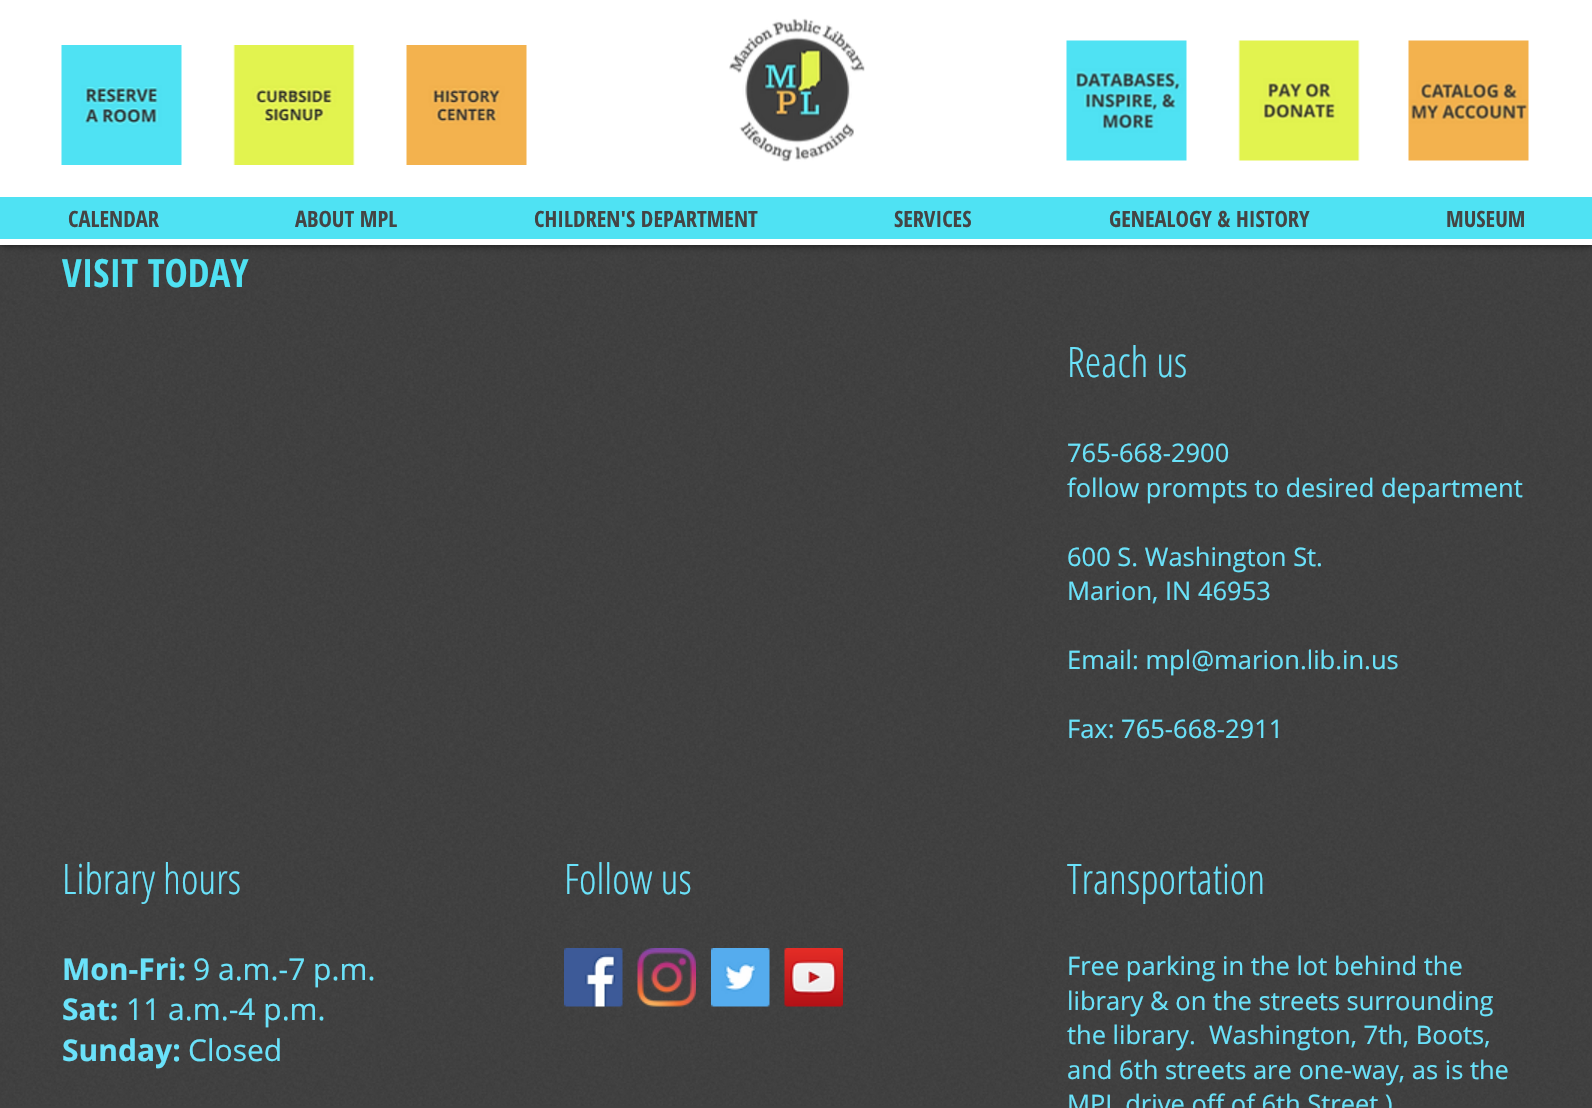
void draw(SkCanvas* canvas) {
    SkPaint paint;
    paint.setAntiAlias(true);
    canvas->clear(0xFF404040);
    canvas->drawImageRect(SkImages::DeferredFromEncodedData(SkData::MakeFromFileName("img8.png")), SkRect::MakeXYWH(0, 245, 1590, 861), SkSamplingOptions());
    paint.setColor(0xB3000000);
    paint.setMaskFilter(SkMaskFilter::MakeBlur(kNormal_SkBlurStyle, 4));
    canvas->drawRect(SkRect::MakeXYWH(0, 0, 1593, 245), paint);
    paint.setMaskFilter(nullptr);
    paint.setColor(0xFFFFFFFF);
    canvas->drawRect(SkRect::MakeXYWH(0, 0, 1592, 245), paint);
    canvas->drawImageRect(SkImages::DeferredFromEncodedData(SkData::MakeFromFileName("img1.png")), SkRect::MakeXYWH(61, 45, 121, 120), SkSamplingOptions());
    canvas->drawImageRect(SkImages::DeferredFromEncodedData(SkData::MakeFromFileName("img2.png")), SkRect::MakeXYWH(233, 45, 122, 120), SkSamplingOptions());
    canvas->drawImageRect(SkImages::DeferredFromEncodedData(SkData::MakeFromFileName("img3.png")), SkRect::MakeXYWH(406, 45, 121, 120), SkSamplingOptions());
    canvas->drawImageRect(SkImages::DeferredFromEncodedData(SkData::MakeFromFileName("img4.png")), SkRect::MakeXYWH(729, 18, 136, 144), SkSamplingOptions());
    canvas->drawImageRect(SkImages::DeferredFromEncodedData(SkData::MakeFromFileName("img5.png")), SkRect::MakeXYWH(1066, 40, 121, 121), SkSamplingOptions());
    canvas->drawImageRect(SkImages::DeferredFromEncodedData(SkData::MakeFromFileName("img6.png")), SkRect::MakeXYWH(1238, 40, 122, 121), SkSamplingOptions());
    canvas->drawImageRect(SkImages::DeferredFromEncodedData(SkData::MakeFromFileName("img7.png")), SkRect::MakeXYWH(1408, 40, 121, 121), SkSamplingOptions());
    paint.setColor(0xFF4FE2F3);
    canvas->drawRect(SkRect::MakeXYWH(0, 197, 1592, 42), paint);
    SkFont font1(fontMgr->matchFamilyStyle("Open Sans Condensed", SkFontStyle::Bold()), 22.5f);
    font1.setSubpixel(true);
    paint.setColor(0xFF444444);
    canvas->drawString("CALENDAR", 68, 227, font1, paint);
    canvas->drawString("ABOUT MPL", 295, 227, font1, paint);
    canvas->drawString("CHILDREN'S DEPARTMENT", 534, 227, font1, paint);
    canvas->drawString("SERVICES", 894, 227, font1, paint);
    canvas->drawString("GENEALOGY & HISTORY", 1109, 227, font1, paint);
    canvas->drawString("MUSEUM", 1446, 227, font1, paint);
    SkFont font2(fontMgr->matchFamilyStyle("Open Sans Condensed", SkFontStyle::Bold()), 39);
    font2.setSubpixel(true);
    paint.setColor(0xFF4FE2F3);
    canvas->drawString("VISIT TODAY", 62, 287, font2, paint);
    SkFont font3(fontMgr->matchFamilyStyle("Open Sans Condensed", SkFontStyle(300, SkFontStyle::kNormal_Width, SkFontStyle::kUpright_Slant)), 42);
    font3.setSubpixel(true);
    paint.setColor(0xFF6AE2FA);
    canvas->drawString("Reach us", 1067, 377, font3, paint);
    SkFont font4(fontMgr->matchFamilyStyle("Open Sans", SkFontStyle::Normal()), 25.5f);
    font4.setSubpixel(true);
    canvas->drawString("765-668-2900", 1067, 462, font4, paint);
    canvas->drawString("follow prompts to desired department", 1067, 497, font4, paint);
    canvas->drawString("600 S. Washington St.", 1067, 566, font4, paint);
    canvas->drawString("Marion, IN 46953", 1067, 600, font4, paint);
    canvas->drawString("Email: mpl@marion.lib.in.us", 1067, 669, font4, paint);
    canvas->drawString("Fax: 765-668-2911", 1067, 738, font4, paint);
    canvas->drawString("Library hours", 62, 894, font3, paint);
    SkFont font5(fontMgr->matchFamilyStyle("Open Sans", SkFontStyle::Bold()), 30);
    font5.setSubpixel(true);
    canvas->drawString("Mon-Fri:", 62, 980, font5, paint);
    SkFont font6(fontMgr->matchFamilyStyle("Open Sans", SkFontStyle::Normal()), 30);
    font6.setSubpixel(true);
    canvas->drawString("9 a.m.-7 p.m.", 193, 980, font6, paint);
    canvas->drawString("Sat:", 62, 1020, font5, paint);
    canvas->drawString("11 a.m.-4 p.m.", 126, 1020, font6, paint);
    canvas->drawString("Sunday:", 62, 1061, font5, paint);
    canvas->drawString("Closed", 188, 1061, font6, paint);
    canvas->drawString("Follow us", 564, 894, font3, paint);
    canvas->drawString("Transportation", 1067, 894, font3, paint);
    canvas->drawImageRect(SkImages::DeferredFromEncodedData(SkData::MakeFromFileName("img9.png")), SkRect::MakeXYWH(564, 948, 59, 59), SkSamplingOptions());
    canvas->drawImageRect(SkImages::DeferredFromEncodedData(SkData::MakeFromFileName("img10.png")), SkRect::MakeXYWH(637, 948, 59, 59), SkSamplingOptions());
    canvas->drawImageRect(SkImages::DeferredFromEncodedData(SkData::MakeFromFileName("img11.png")), SkRect::MakeXYWH(711, 948, 59, 59), SkSamplingOptions());
    canvas->drawImageRect(SkImages::DeferredFromEncodedData(SkData::MakeFromFileName("img12.png")), SkRect::MakeXYWH(784, 948, 59, 59), SkSamplingOptions());
    canvas->drawString("Free parking in the lot behind the", 1067, 975, font4, paint);
    canvas->drawString("library & on the streets surrounding", 1067, 1010, font4, paint);
    canvas->drawString("the library.  Washington, 7th, Boots,", 1067, 1044, font4, paint);
    canvas->drawString("and 6th streets are one-way, as is the", 1067, 1079, font4, paint);
    canvas->drawString("MPL drive off of 6th Street.)", 1067, 1113, font4, paint);
}
